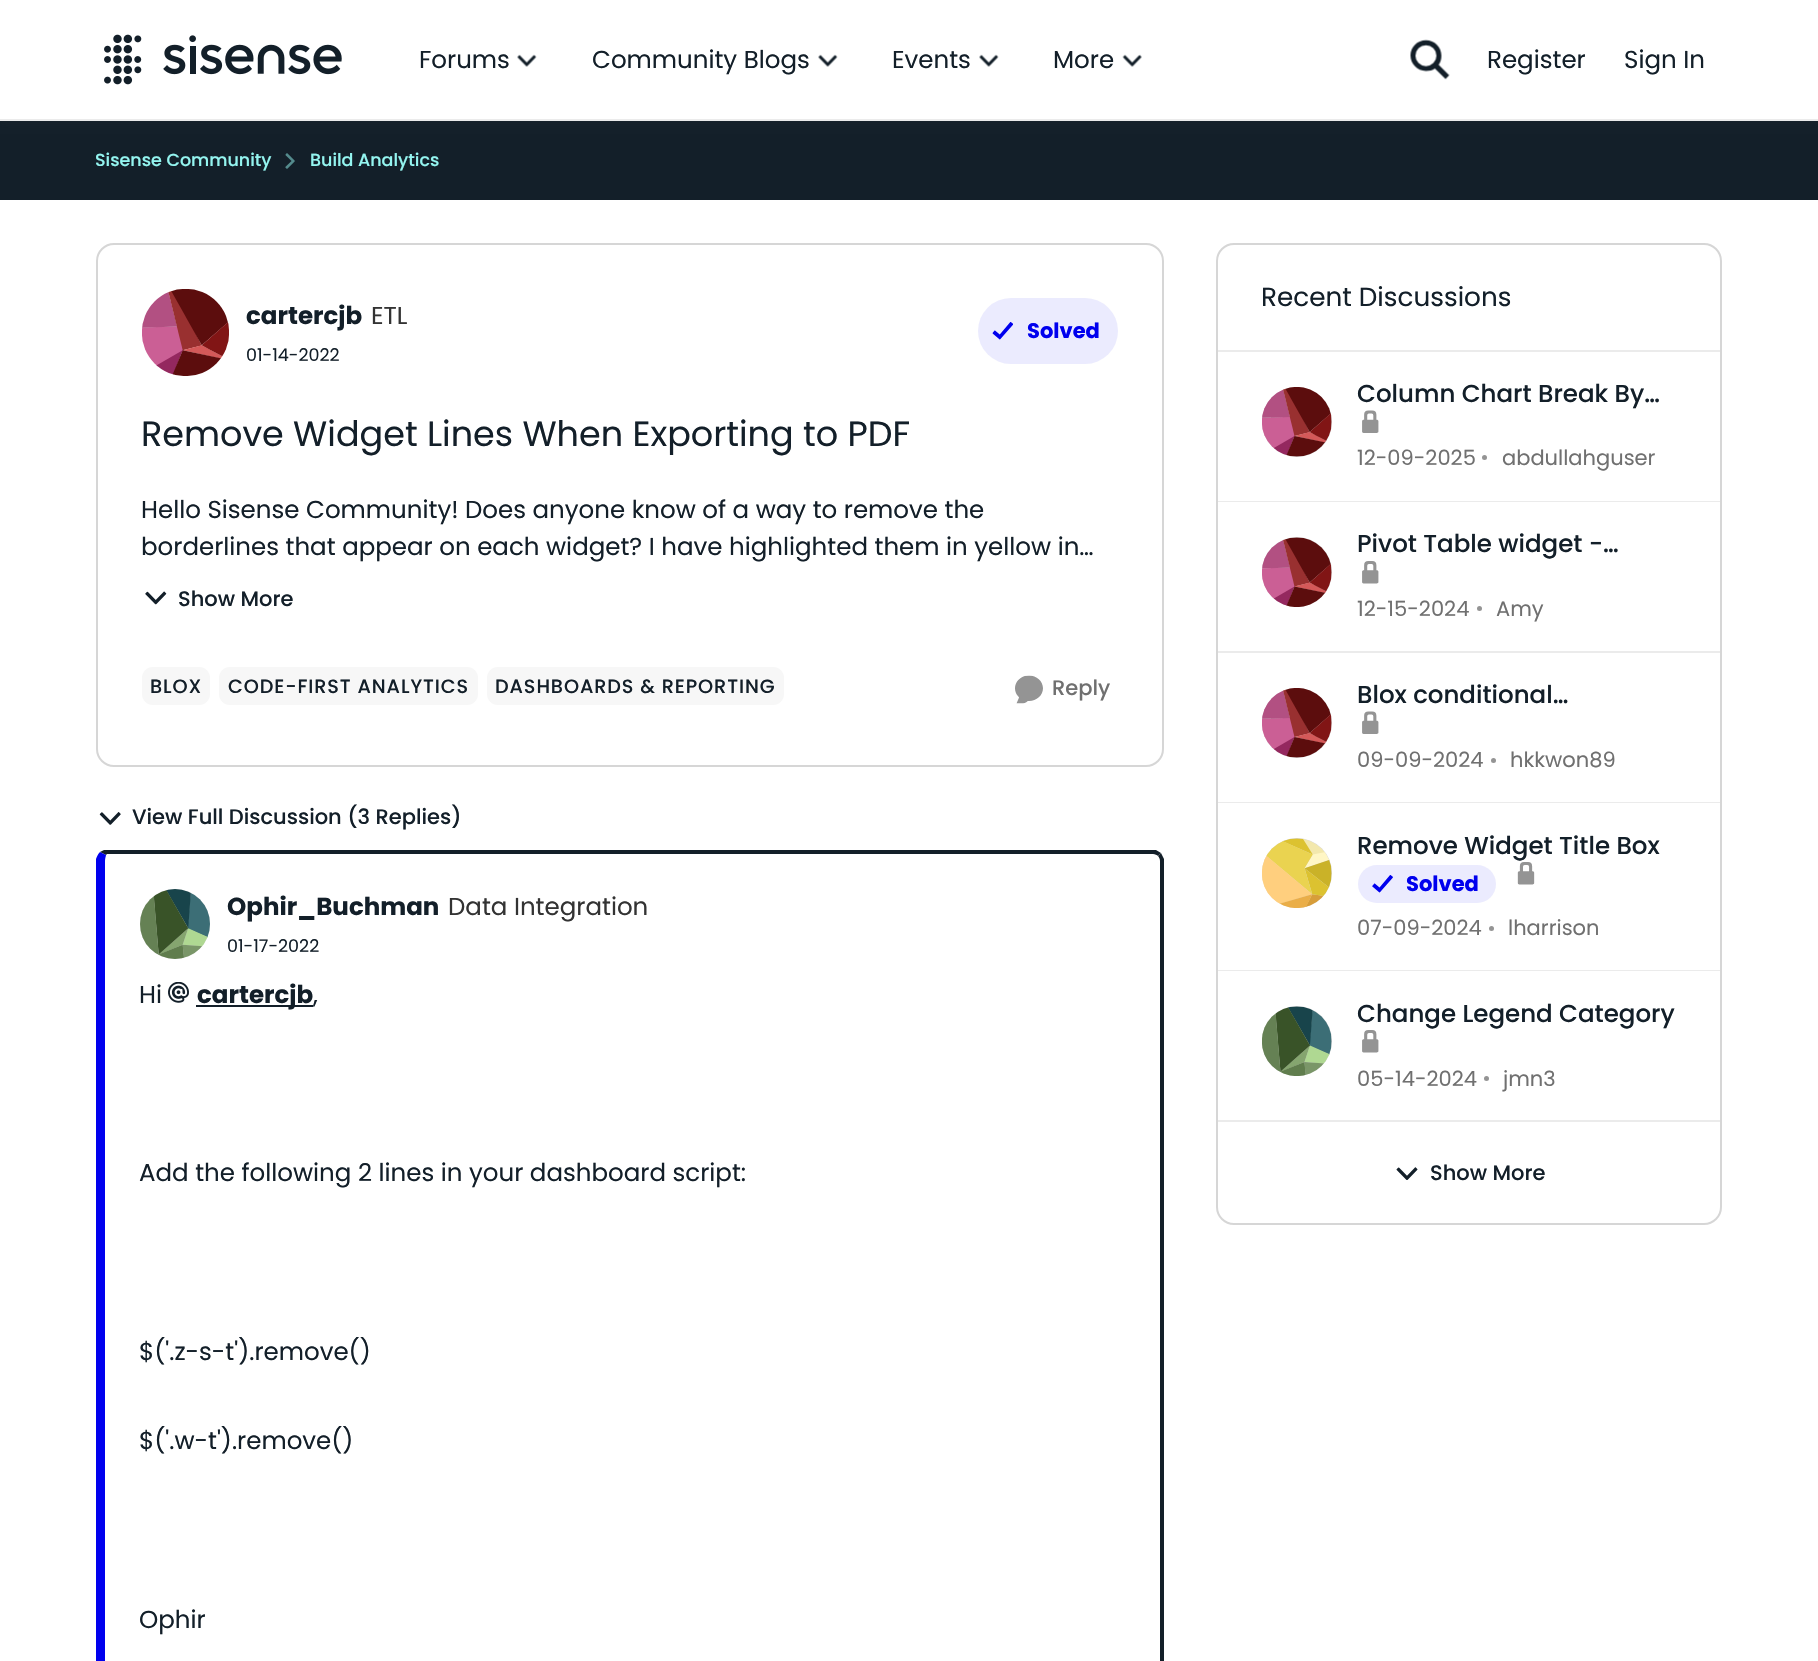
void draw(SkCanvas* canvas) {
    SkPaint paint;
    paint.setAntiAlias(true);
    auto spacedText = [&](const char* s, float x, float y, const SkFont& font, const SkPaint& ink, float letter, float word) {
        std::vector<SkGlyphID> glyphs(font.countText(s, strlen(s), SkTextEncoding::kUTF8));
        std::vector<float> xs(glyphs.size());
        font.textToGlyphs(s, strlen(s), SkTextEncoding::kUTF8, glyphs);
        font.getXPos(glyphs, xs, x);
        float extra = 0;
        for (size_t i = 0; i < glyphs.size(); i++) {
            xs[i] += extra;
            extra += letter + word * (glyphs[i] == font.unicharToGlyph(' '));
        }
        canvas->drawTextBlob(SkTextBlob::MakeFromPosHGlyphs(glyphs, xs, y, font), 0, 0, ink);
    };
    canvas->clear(0xFFFFFFFF);
    paint.setColor(0xFF131F29);
    canvas->drawRect(SkRect::MakeXYWH(0, 121, 1818, 79), paint);
    paint.setColor(0x1F333333);
    paint.setMaskFilter(SkMaskFilter::MakeBlur(kNormal_SkBlurStyle, 3.5f));
    canvas->drawRect(SkRect::MakeXYWH(0, 4, 1818, 120), paint);
    paint.setMaskFilter(nullptr);
    paint.setColor(0xFFFFFFFF);
    canvas->drawRect(SkRect::MakeXYWH(0, 0, 1818, 119), paint);
    paint.setColor(0xFFEBEBEB);
    canvas->drawRect(SkRect::MakeXYWH(0, 119, 1818, 2), paint);
    canvas->drawImageRect(SkImages::DeferredFromEncodedData(SkData::MakeFromFileName("img1.png")), SkRect::MakeXYWH(104, 34, 238, 51), SkSamplingOptions());
    SkFont font1(fontMgr->matchFamilyStyle("Poppins", SkFontStyle::Normal()), 24.5f);
    font1.setSubpixel(true);
    paint.setColor(0xFF131F29);
    canvas->drawString("Forums", 419, 68, font1, paint);
    canvas->drawImageRect(SkImages::DeferredFromEncodedData(SkData::MakeFromFileName("img2.png")), SkRect::MakeXYWH(517, 54, 20, 13), SkSamplingOptions());
    canvas->drawString("Community Blogs", 592, 68, font1, paint);
    canvas->drawImageRect(SkImages::DeferredFromEncodedData(SkData::MakeFromFileName("img2.png")), SkRect::MakeXYWH(818, 54, 20, 13), SkSamplingOptions());
    canvas->drawString("Events", 892, 68, font1, paint);
    canvas->drawImageRect(SkImages::DeferredFromEncodedData(SkData::MakeFromFileName("img2.png")), SkRect::MakeXYWH(979, 54, 20, 13), SkSamplingOptions());
    canvas->drawString("More", 1053, 68, font1, paint);
    canvas->drawImageRect(SkImages::DeferredFromEncodedData(SkData::MakeFromFileName("img3.png")), SkRect::MakeXYWH(1122, 54, 20, 13), SkSamplingOptions());
    canvas->drawImageRect(SkImages::DeferredFromEncodedData(SkData::MakeFromFileName("img4.png")), SkRect::MakeXYWH(1410, 39, 40, 41), SkSamplingOptions());
    canvas->drawString("Register", 1487, 68, font1, paint);
    canvas->drawString("Sign In", 1624, 68, font1, paint);
    SkFont font2(fontMgr->matchFamilyStyle("Poppins", SkFontStyle(500, SkFontStyle::kNormal_Width, SkFontStyle::kUpright_Slant)), 17.5f);
    font2.setSubpixel(true);
    paint.setColor(0xFF94F5F0);
    canvas->drawString("Sisense Community", 95, 166, font2, paint);
    canvas->drawImageRect(SkImages::DeferredFromEncodedData(SkData::MakeFromFileName("img5.png")), SkRect::MakeXYWH(285, 153, 10, 16), SkSamplingOptions());
    canvas->drawString("Build Analytics", 310, 166, font2, paint);
    paint.setStyle(SkPaint::kStroke_Style);
    paint.setStrokeWidth(2);
    paint.setColor(0xFFD6D6D6);
    canvas->drawRoundRect(SkRect::MakeXYWH(97, 244, 1066, 522), 17, 17, paint);
    canvas->drawImageRect(SkImages::DeferredFromEncodedData(SkData::MakeFromFileName("img6.png")), SkRect::MakeXYWH(142, 289, 87, 87), SkSamplingOptions());
    SkFont font3(fontMgr->matchFamilyStyle("Poppins", SkFontStyle::Bold()), 24.5f);
    font3.setSubpixel(true);
    paint.setStyle(SkPaint::kFill_Style);
    paint.setColor(0xFF131F29);
    canvas->drawString("cartercjb", 246, 324, font3, paint);
    paint.setColor(0xFF333333);
    canvas->drawString("ETL", 371, 324, font1, paint);
    SkFont font4(fontMgr->matchFamilyStyle("Poppins", SkFontStyle::Normal()), 17.5f);
    font4.setSubpixel(true);
    paint.setColor(0xFF131F29);
    canvas->drawString("01-14-2022", 246, 361, font4, paint);
    paint.setColor(0xFFEBEBFE);
    canvas->drawRoundRect(SkRect::MakeXYWH(978, 298, 140, 66), 33, 33, paint);
    canvas->drawImageRect(SkImages::DeferredFromEncodedData(SkData::MakeFromFileName("img7.png")), SkRect::MakeXYWH(992, 322, 21, 18), SkSamplingOptions());
    SkFont font5(fontMgr->matchFamilyStyle("Poppins", SkFontStyle::Bold()), 21);
    font5.setSubpixel(true);
    paint.setColor(0xFF0000EE);
    canvas->drawString("Solved", 1027, 338, font5, paint);
    SkFont font6(fontMgr->matchFamilyStyle("Poppins", SkFontStyle::Normal()), 35);
    font6.setSubpixel(true);
    paint.setColor(0xFF131F29);
    canvas->drawString("Remove Widget Lines When Exporting to PDF", 141, 446, font6, paint);
    canvas->drawString("Hello Sisense Community! Does anyone know of a way to remove the", 141, 518, font1, paint);
    canvas->drawString("borderlines that appear on each widget? I have highlighted them in yellow in…", 141, 555, font1, paint);
    canvas->drawImageRect(SkImages::DeferredFromEncodedData(SkData::MakeFromFileName("img8.png")), SkRect::MakeXYWH(145, 591, 22, 14), SkSamplingOptions());
    SkFont font7(fontMgr->matchFamilyStyle("Poppins", SkFontStyle(500, SkFontStyle::kNormal_Width, SkFontStyle::kUpright_Slant)), 21);
    font7.setSubpixel(true);
    canvas->drawString("Show More", 178, 606, font7, paint);
    paint.setColor(0xFFF7F7F7);
    canvas->drawRoundRect(SkRect::MakeXYWH(142, 667, 68, 38), 11, 11, paint);
    SkFont font8(fontMgr->matchFamilyStyle("Poppins", SkFontStyle(500, SkFontStyle::kNormal_Width, SkFontStyle::kUpright_Slant)), 19.25f);
    font8.setSubpixel(true);
    paint.setColor(0xFF131F29);
    spacedText("BLOX", 150, 693, font8, paint, 0.9f, 0);
    paint.setColor(0xFFF7F7F7);
    canvas->drawRoundRect(SkRect::MakeXYWH(219, 667, 259, 38), 11, 11, paint);
    paint.setColor(0xFF131F29);
    spacedText("CODE-FIRST ANALYTICS", 228, 693, font8, paint, 0.9f, 0);
    paint.setColor(0xFFF7F7F7);
    canvas->drawRoundRect(SkRect::MakeXYWH(487, 667, 297, 38), 11, 11, paint);
    paint.setColor(0xFF131F29);
    spacedText("DASHBOARDS & REPORTING", 495, 693, font8, paint, 0.9f, 0);
    canvas->drawImageRect(SkImages::DeferredFromEncodedData(SkData::MakeFromFileName("img9.png")), SkRect::MakeXYWH(1015, 675, 28, 29), SkSamplingOptions());
    paint.setColor(0xFF707070);
    canvas->drawString("Reply", 1052, 695, font7, paint);
    canvas->drawImageRect(SkImages::DeferredFromEncodedData(SkData::MakeFromFileName("img10.png")), SkRect::MakeXYWH(99, 812, 22, 13), SkSamplingOptions());
    paint.setColor(0xFF131F29);
    canvas->drawString("View Full Discussion (3 Replies)", 132, 824, font7, paint);
    canvas->drawPath(SkPathBuilder().moveTo(107, 854).lineTo(106, 855).lineTo(100, 852).lineTo(104, 850).lineTo(1156, 850).lineTo(1161, 853).lineTo(1158, 856).cubicTo(1157, 855, 1155, 854, 1153, 854).close().detach(), paint);
    canvas->drawPath(SkPathBuilder().moveTo(1164, 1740).cubicTo(1163, 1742, 1162, 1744, 1161, 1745).lineTo(1158, 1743).cubicTo(1159, 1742, 1160, 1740, 1160, 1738).lineTo(1160, 861).cubicTo(1160, 859, 1159, 857, 1158, 856).lineTo(1161, 853).cubicTo(1162, 855, 1163, 857, 1164, 859).close().detach(), paint);
    paint.setColor(0xFF0000EE);
    canvas->drawPath(SkPathBuilder().moveTo(96, 859).cubicTo(97, 856, 98, 854, 100, 852).lineTo(106, 855).cubicTo(106, 856, 105, 858, 105, 861).lineTo(105, 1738).cubicTo(105, 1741, 106, 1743, 106, 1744).lineTo(101, 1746).cubicTo(99, 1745, 97, 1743, 96, 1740).close().detach(), paint);
    paint.setColor(0xFFD9D9D9);
    canvas->drawCircle(175, 924, 35, paint);
    canvas->drawImageRect(SkImages::DeferredFromEncodedData(SkData::MakeFromFileName("img11.png")), SkRect::MakeXYWH(140, 889, 70, 70), SkSamplingOptions());
    paint.setColor(0xFF131F29);
    canvas->drawString("Ophir_Buchman", 227, 915, font3, paint);
    paint.setColor(0xFF333333);
    canvas->drawString("Data Integration", 448, 915, font1, paint);
    paint.setColor(0xFF131F29);
    canvas->drawString("01-17-2022", 227, 952, font4, paint);
    canvas->drawString("Hi", 139, 1003, font1, paint);
    canvas->drawImageRect(SkImages::DeferredFromEncodedData(SkData::MakeFromFileName("img12.png")), SkRect::MakeXYWH(168, 982, 21, 21), SkSamplingOptions());
    canvas->drawRect(SkRect::MakeXYWH(196, 1005, 117, 2), paint);
    canvas->drawString("cartercjb", 197, 1003, font3, paint);
    canvas->drawString(",", 313, 1003, font1, paint);
    canvas->drawString("Add the following 2 lines in your dashboard script:", 139, 1181, font1, paint);
    canvas->drawString("$('.z-s-t').remove()", 139, 1360, font1, paint);
    canvas->drawString("$('.w-t').remove()", 139, 1449, font1, paint);
    canvas->drawString("Ophir", 139, 1628, font1, paint);
    paint.setStyle(SkPaint::kStroke_Style);
    paint.setColor(0xFFD6D6D6);
    canvas->drawRoundRect(SkRect::MakeXYWH(1217, 244, 504, 980), 17, 17, paint);
    paint.setStyle(SkPaint::kFill_Style);
    paint.setColor(0xFFEBEBEB);
    canvas->drawRect(SkRect::MakeXYWH(1218, 350, 502, 2), paint);
    SkFont font9(fontMgr->matchFamilyStyle("Poppins", SkFontStyle::Normal()), 26.25f);
    font9.setSubpixel(true);
    paint.setColor(0xFF131F29);
    canvas->drawString("Recent Discussions", 1261, 306, font9, paint);
    paint.setColor(0xFFEBEBEB);
    canvas->drawRect(SkRect::MakeXYWH(1218, 501, 502, 1), paint);
    paint.setColor(0xFFD9D9D9);
    canvas->drawCircle(1297, 422, 35, paint);
    canvas->drawImageRect(SkImages::DeferredFromEncodedData(SkData::MakeFromFileName("img13.png")), SkRect::MakeXYWH(1262, 387, 70, 70), SkSamplingOptions());
    SkFont font10(fontMgr->matchFamilyStyle("Poppins", SkFontStyle(500, SkFontStyle::kNormal_Width, SkFontStyle::kUpright_Slant)), 24.5f);
    font10.setSubpixel(true);
    paint.setColor(0xFF131F29);
    canvas->drawString("Column Chart Break By…", 1357, 402, font10, paint);
    canvas->drawImageRect(SkImages::DeferredFromEncodedData(SkData::MakeFromFileName("img14.png")), SkRect::MakeXYWH(1362, 410, 17, 23), SkSamplingOptions());
    SkFont font11(fontMgr->matchFamilyStyle("Poppins", SkFontStyle::Normal()), 21);
    font11.setSubpixel(true);
    paint.setColor(0xFF707070);
    canvas->drawString("12-09-2025", 1357, 465, font11, paint);
    paint.setColor(0xFF949494);
    canvas->drawCircle(1484.5f, 457.5f, 2.5f, paint);
    paint.setColor(0xFF707070);
    canvas->drawString("abdullahguser", 1502, 465, font11, paint);
    paint.setColor(0xFFEBEBEB);
    canvas->drawRect(SkRect::MakeXYWH(1218, 651, 502, 2), paint);
    paint.setColor(0xFFD9D9D9);
    canvas->drawCircle(1297, 572, 35, paint);
    canvas->drawImageRect(SkImages::DeferredFromEncodedData(SkData::MakeFromFileName("img15.png")), SkRect::MakeXYWH(1262, 537, 70, 70), SkSamplingOptions());
    paint.setColor(0xFF131F29);
    canvas->drawString("Pivot Table widget -…", 1357, 552, font10, paint);
    canvas->drawImageRect(SkImages::DeferredFromEncodedData(SkData::MakeFromFileName("img16.png")), SkRect::MakeXYWH(1362, 561, 17, 23), SkSamplingOptions());
    paint.setColor(0xFF707070);
    canvas->drawString("12-15-2024", 1357, 616, font11, paint);
    paint.setColor(0xFF949494);
    canvas->drawCircle(1479.5f, 608.5f, 2.5f, paint);
    paint.setColor(0xFF707070);
    canvas->drawString("Amy", 1496, 616, font11, paint);
    paint.setColor(0xFFEBEBEB);
    canvas->drawRect(SkRect::MakeXYWH(1218, 802, 502, 1), paint);
    paint.setColor(0xFFD9D9D9);
    canvas->drawCircle(1297, 723, 35, paint);
    canvas->drawImageRect(SkImages::DeferredFromEncodedData(SkData::MakeFromFileName("img13.png")), SkRect::MakeXYWH(1262, 688, 70, 70), SkSamplingOptions());
    paint.setColor(0xFF131F29);
    canvas->drawString("Blox conditional…", 1357, 703, font10, paint);
    canvas->drawImageRect(SkImages::DeferredFromEncodedData(SkData::MakeFromFileName("img14.png")), SkRect::MakeXYWH(1362, 711, 17, 23), SkSamplingOptions());
    paint.setColor(0xFF707070);
    canvas->drawString("09-09-2024", 1357, 767, font11, paint);
    paint.setColor(0xFF949494);
    canvas->drawCircle(1493.5f, 760.5f, 2.5f, paint);
    paint.setColor(0xFF707070);
    canvas->drawString("hkkwon89", 1510, 767, font11, paint);
    paint.setColor(0xFFEBEBEB);
    canvas->drawRect(SkRect::MakeXYWH(1218, 970, 502, 1), paint);
    paint.setColor(0xFFD9D9D9);
    canvas->drawCircle(1297, 873, 35, paint);
    canvas->drawImageRect(SkImages::DeferredFromEncodedData(SkData::MakeFromFileName("img17.png")), SkRect::MakeXYWH(1262, 838, 70, 70), SkSamplingOptions());
    paint.setColor(0xFF131F29);
    canvas->drawString("Remove Widget Title Box", 1357, 854, font10, paint);
    paint.setColor(0xFFEBEBFE);
    canvas->drawRoundRect(SkRect::MakeXYWH(1358, 865, 138, 38), 19, 19, paint);
    canvas->drawImageRect(SkImages::DeferredFromEncodedData(SkData::MakeFromFileName("img18.png")), SkRect::MakeXYWH(1372, 875, 21, 18), SkSamplingOptions());
    paint.setColor(0xFF0000EE);
    canvas->drawString("Solved", 1406, 891, font5, paint);
    canvas->drawImageRect(SkImages::DeferredFromEncodedData(SkData::MakeFromFileName("img19.png")), SkRect::MakeXYWH(1517, 862, 18, 23), SkSamplingOptions());
    paint.setColor(0xFF707070);
    canvas->drawString("07-09-2024", 1357, 935, font11, paint);
    paint.setColor(0xFF949494);
    canvas->drawCircle(1491.5f, 928.5f, 2.5f, paint);
    paint.setColor(0xFF707070);
    canvas->drawString("lharrison", 1508, 935, font11, paint);
    paint.setColor(0xFFD9D9D9);
    canvas->drawCircle(1297, 1041, 35, paint);
    canvas->drawImageRect(SkImages::DeferredFromEncodedData(SkData::MakeFromFileName("img20.png")), SkRect::MakeXYWH(1262, 1006, 70, 70), SkSamplingOptions());
    paint.setColor(0xFF131F29);
    canvas->drawString("Change Legend Category", 1357, 1022, font10, paint);
    canvas->drawImageRect(SkImages::DeferredFromEncodedData(SkData::MakeFromFileName("img16.png")), SkRect::MakeXYWH(1362, 1030, 17, 23), SkSamplingOptions());
    paint.setColor(0xFF707070);
    canvas->drawString("05-14-2024", 1357, 1086, font11, paint);
    paint.setColor(0xFF949494);
    canvas->drawCircle(1486.5f, 1078.5f, 2.5f, paint);
    paint.setColor(0xFF707070);
    canvas->drawString("jmn3", 1503, 1086, font11, paint);
    paint.setColor(0xFFEBEBEB);
    canvas->drawRect(SkRect::MakeXYWH(1218, 1120, 502, 2), paint);
    canvas->drawImageRect(SkImages::DeferredFromEncodedData(SkData::MakeFromFileName("img21.png")), SkRect::MakeXYWH(1396, 1167, 22, 13), SkSamplingOptions());
    paint.setColor(0xFF131F29);
    canvas->drawString("Show More", 1430, 1180, font7, paint);
}
